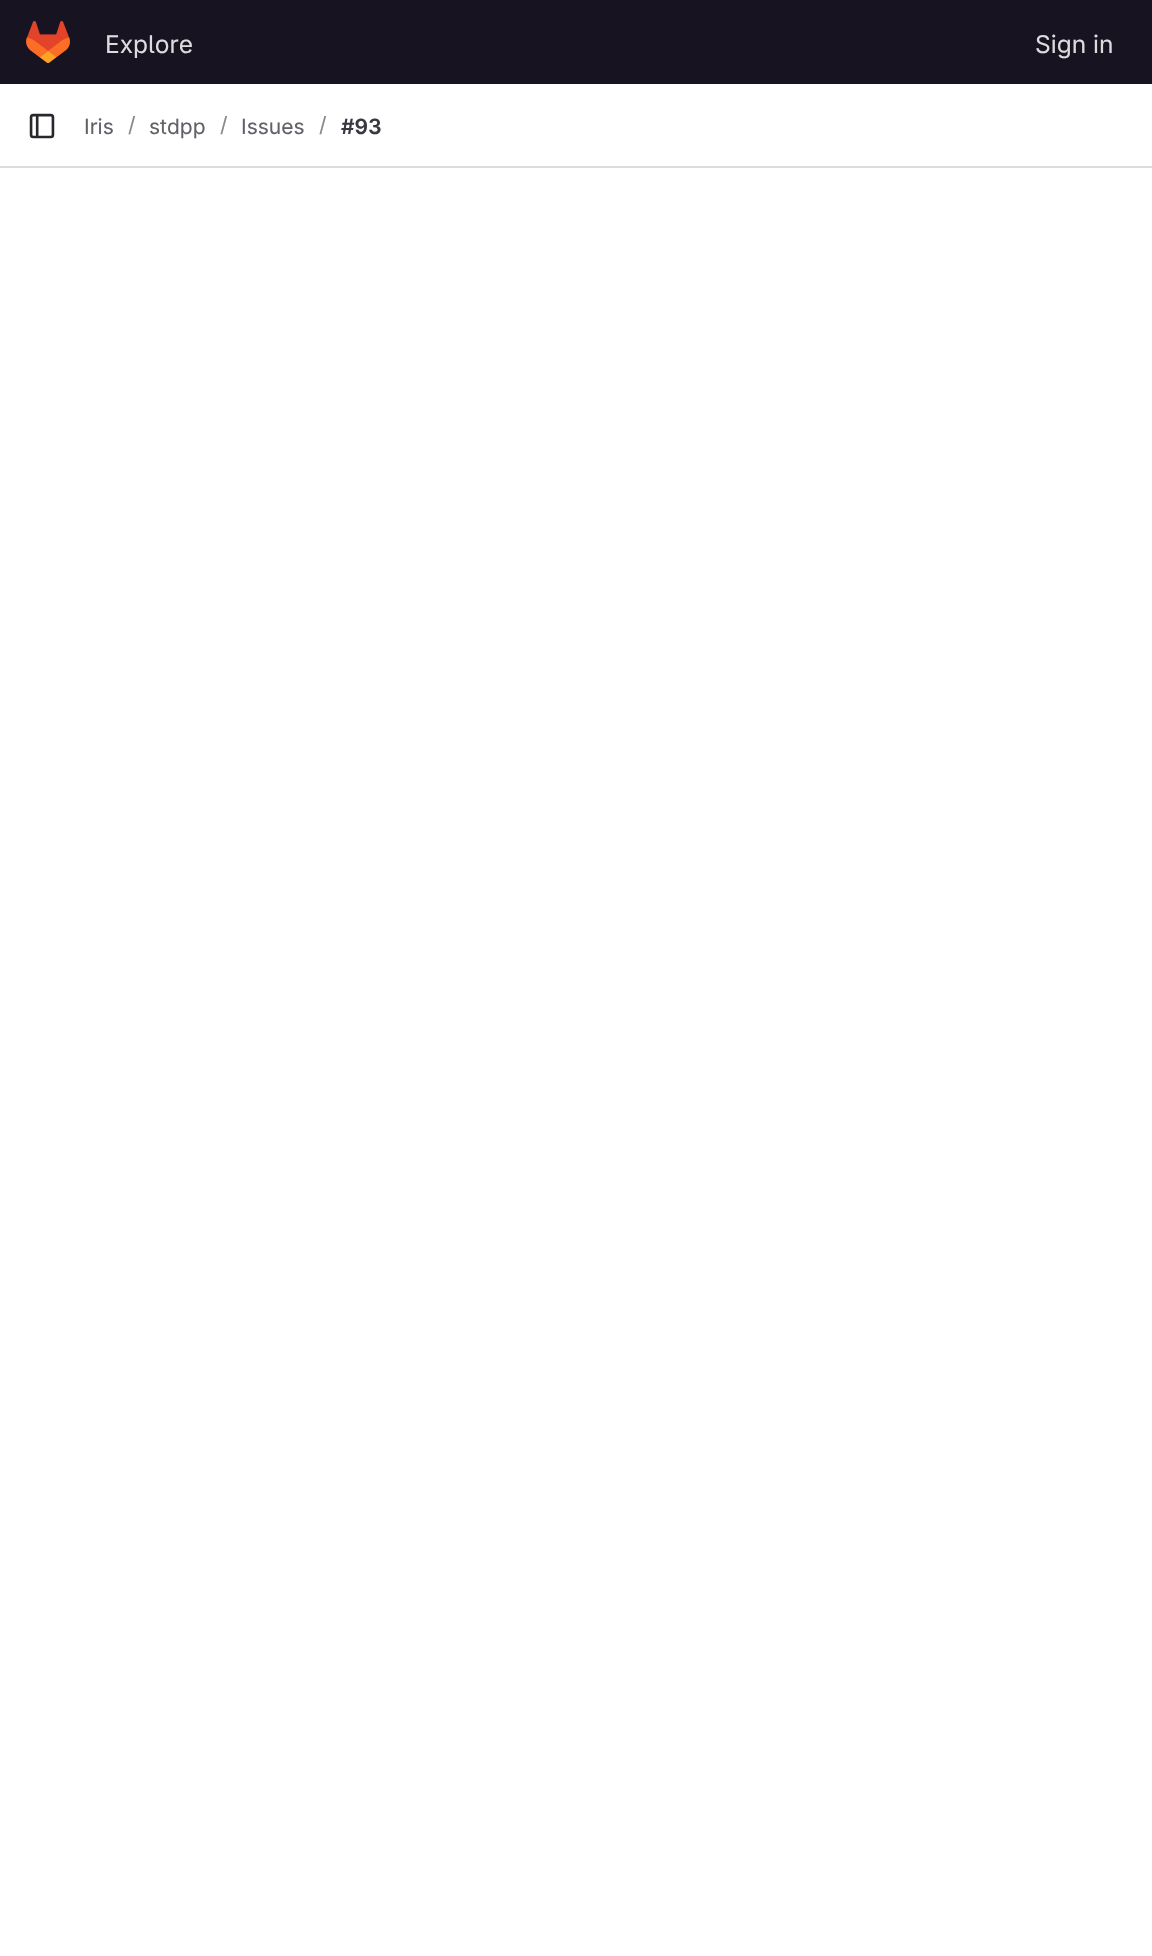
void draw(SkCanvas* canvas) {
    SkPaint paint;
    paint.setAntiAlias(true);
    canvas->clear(0xFFFFFFFF);
    paint.setColor(0xFF171321);
    canvas->drawRect(SkRect::MakeXYWH(0, 0, 1152, 84), paint);
    canvas->drawImageRect(SkImages::DeferredFromEncodedData(SkData::MakeFromFileName("img1.png")), SkRect::MakeXYWH(26, 21, 44, 42), SkSamplingOptions());
    SkFont font1(fontMgr->matchFamilyStyle("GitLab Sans", SkFontStyle::Normal()), 24.5f);
    font1.setSubpixel(true);
    paint.setColor(0xFFDCDCDE);
    canvas->drawString("Explore", 105, 53, font1, paint);
    canvas->drawString("Sign in", 1035, 53, font1, paint);
    canvas->drawRect(SkRect::MakeXYWH(0, 166, 1152, 2), paint);
    canvas->drawImageRect(SkImages::DeferredFromEncodedData(SkData::MakeFromFileName("img2.png")), SkRect::MakeXYWH(29, 113, 26, 26), SkSamplingOptions());
    SkFont font2(fontMgr->matchFamilyStyle("GitLab Sans", SkFontStyle::Normal()), 21);
    font2.setSubpixel(true);
    paint.setColor(0xFF626168);
    canvas->drawString("Iris", 84, 134, font2, paint);
    paint.setColor(0xFF89888D);
    canvas->drawString("/", 128, 132, font2, paint);
    paint.setColor(0xFF626168);
    canvas->drawString("stdpp", 149, 134, font2, paint);
    paint.setColor(0xFF89888D);
    canvas->drawString("/", 220, 132, font2, paint);
    paint.setColor(0xFF626168);
    canvas->drawString("Issues", 241, 134, font2, paint);
    paint.setColor(0xFF89888D);
    canvas->drawString("/", 319, 132, font2, paint);
    SkFont font3(fontMgr->matchFamilyStyle("GitLab Sans", SkFontStyle(600, SkFontStyle::kNormal_Width, SkFontStyle::kUpright_Slant)), 21);
    font3.setSubpixel(true);
    paint.setColor(0xFF3A383F);
    canvas->drawString("#93", 341, 134, font3, paint);
}
